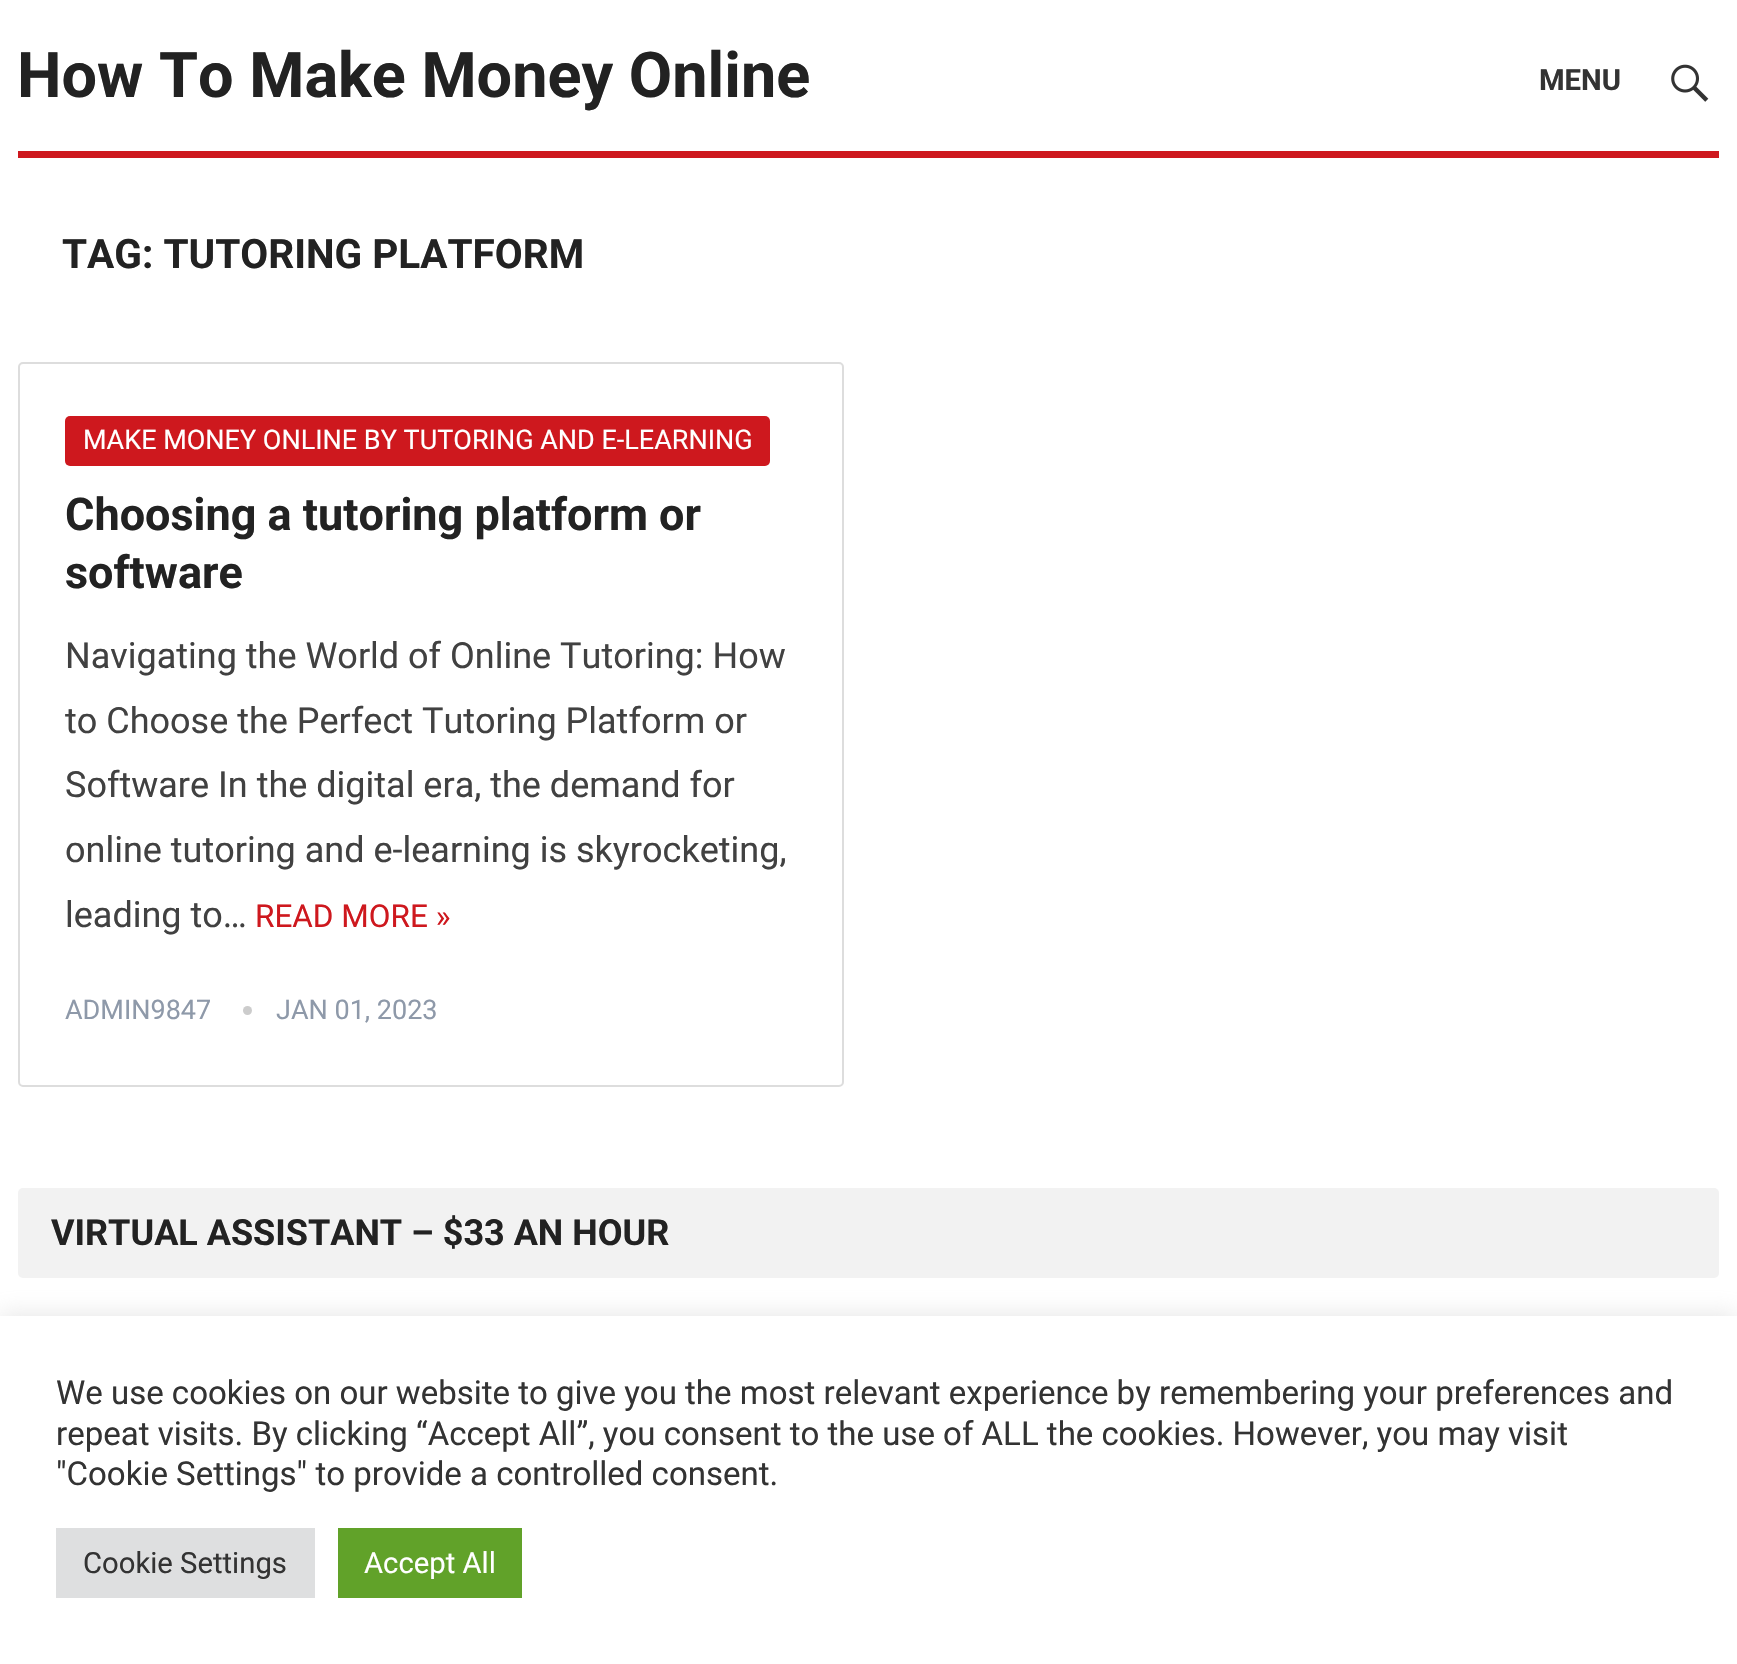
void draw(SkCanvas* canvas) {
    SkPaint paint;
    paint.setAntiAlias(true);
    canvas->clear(0xFFFFFFFF);
    paint.setColor(0xFFCE181E);
    canvas->drawRect(SkRect::MakeXYWH(18, 151, 1701, 7), paint);
    SkFont font1(fontMgr->matchFamilyStyle("Roboto", SkFontStyle::Bold()), 63);
    font1.setSubpixel(true);
    paint.setColor(0xFF222222);
    canvas->drawString("How To Make Money Online", 17, 97, font1, paint);
    SkFont font2(fontMgr->matchFamilyStyle("Roboto", SkFontStyle::Bold()), 29.25f);
    font2.setSubpixel(true);
    paint.setColor(0xFF333333);
    canvas->drawString("MENU", 1539, 90, font2, paint);
    canvas->drawImageRect(SkImages::DeferredFromEncodedData(SkData::MakeFromFileName("img1.png")), SkRect::MakeXYWH(1671, 64, 38, 38), SkSamplingOptions());
    SkFont font3(fontMgr->matchFamilyStyle("Roboto", SkFontStyle::Bold()), 40.5f);
    font3.setSubpixel(true);
    paint.setColor(0xFF222222);
    canvas->drawString("TAG: TUTORING PLATFORM", 62, 268, font3, paint);
    paint.setStyle(SkPaint::kStroke_Style);
    paint.setStrokeWidth(2);
    paint.setColor(0xFFDDDDDD);
    canvas->drawRoundRect(SkRect::MakeXYWH(19, 363, 824, 723), 4, 4, paint);
    paint.setStyle(SkPaint::kFill_Style);
    paint.setColor(0xFFCE181E);
    canvas->drawRoundRect(SkRect::MakeXYWH(65, 416, 705, 50), 5, 5, paint);
    SkFont font4(fontMgr->matchFamilyStyle("Roboto", SkFontStyle::Normal()), 27);
    font4.setSubpixel(true);
    paint.setColor(0xFFFFFFFF);
    canvas->drawString("MAKE MONEY ONLINE BY TUTORING AND E-LEARNING", 83, 449, font4, paint);
    SkFont font5(fontMgr->matchFamilyStyle("Roboto", SkFontStyle::Bold()), 45);
    font5.setSubpixel(true);
    paint.setColor(0xFF222222);
    canvas->drawString("Choosing a tutoring platform or", 65, 530, font5, paint);
    canvas->drawString("software", 65, 588, font5, paint);
    SkFont font6(fontMgr->matchFamilyStyle("Roboto", SkFontStyle::Normal()), 36);
    font6.setSubpixel(true);
    paint.setColor(0xFF414141);
    canvas->drawString("Navigating the World of Online Tutoring: How", 65, 668, font6, paint);
    canvas->drawString("to Choose the Perfect Tutoring Platform or", 65, 733, font6, paint);
    canvas->drawString("Software In the digital era, the demand for", 65, 797, font6, paint);
    canvas->drawString("online tutoring and e-learning is skyrocketing,", 65, 862, font6, paint);
    canvas->drawString("leading to…", 65, 927, font6, paint);
    SkFont font7(fontMgr->matchFamilyStyle("Roboto", SkFontStyle::Normal()), 31.5f);
    font7.setSubpixel(true);
    paint.setColor(0xFFCE181E);
    canvas->drawString("READ MORE »", 255, 927, font7, paint);
    paint.setColor(0xFF8E99A9);
    canvas->drawString("ADMIN9847", 65, 1019, font4, paint);
    paint.setColor(0xFFCCCCCC);
    canvas->drawCircle(247.5f, 1010.5f, 4.5f, paint);
    paint.setColor(0xFF8E99A9);
    canvas->drawString("JAN 01, 2023", 276, 1019, font4, paint);
    paint.setColor(0xFFF2F2F2);
    canvas->drawRoundRect(SkRect::MakeXYWH(18, 1188, 1701, 90), 5, 5, paint);
    SkFont font8(fontMgr->matchFamilyStyle("Roboto", SkFontStyle::Bold()), 36);
    font8.setSubpixel(true);
    paint.setColor(0xFF222222);
    canvas->drawString("VIRTUAL ASSISTANT – $33 AN HOUR", 51, 1245, font8, paint);
    paint.setColor(0x4DACABAB);
    paint.setMaskFilter(SkMaskFilter::MakeBlur(kNormal_SkBlurStyle, 11));
    canvas->drawRect(SkRect::MakeXYWH(0, 1314, 1737, 349), paint);
    paint.setMaskFilter(nullptr);
    paint.setColor(0xFFFFFFFF);
    canvas->drawRect(SkRect::MakeXYWH(0, 1316, 1737, 348), paint);
    SkFont font9(fontMgr->matchFamilyStyle("Roboto", SkFontStyle::Normal()), 33);
    font9.setSubpixel(true);
    paint.setColor(0xFF333333);
    canvas->drawString("We use cookies on our website to give you the most relevant experience by remembering your preferences and", 56, 1404, font9, paint);
    canvas->drawString("repeat visits. By clicking “Accept All”, you consent to the use of ALL the cookies. However, you may visit", 56, 1445, font9, paint);
    canvas->drawString("\"Cookie Settings\" to provide a controlled consent.", 56, 1485, font9, paint);
    paint.setColor(0xFFDEDFE0);
    canvas->drawRect(SkRect::MakeXYWH(56, 1528, 259, 70), paint);
    SkFont font10(fontMgr->matchFamilyStyle("Roboto", SkFontStyle::Normal()), 29.25f);
    font10.setSubpixel(true);
    paint.setColor(0xFF333333);
    canvas->drawString("Cookie Settings", 83, 1573, font10, paint);
    paint.setColor(0xFF61A229);
    canvas->drawRect(SkRect::MakeXYWH(338, 1528, 184, 70), paint);
    paint.setColor(0xFFFFFFFF);
    canvas->drawString("Accept All", 364, 1573, font10, paint);
}
